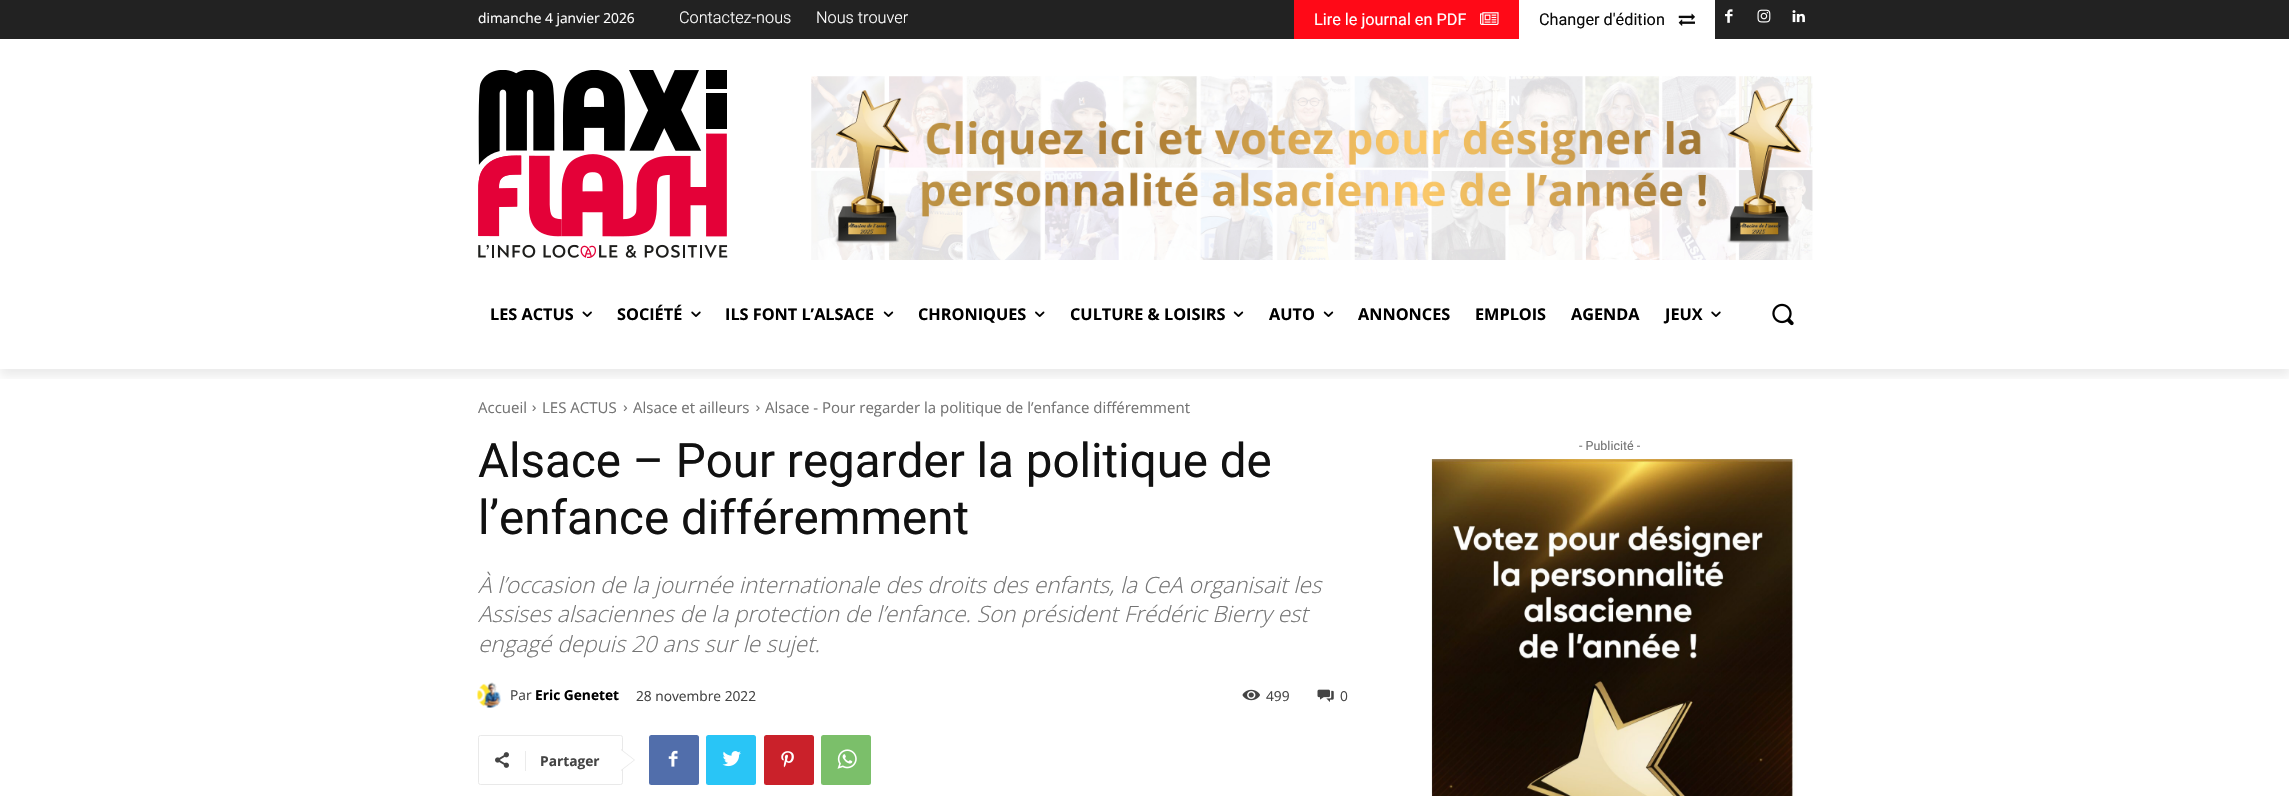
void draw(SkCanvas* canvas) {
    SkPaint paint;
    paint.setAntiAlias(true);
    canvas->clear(0xFFFFFFFF);
    paint.setColor(0xFF222222);
    canvas->drawRect(SkRect::MakeXYWH(0, 0, 2289, 39), paint);
    paint.setColor(0xFFFF0917);
    canvas->drawRect(SkRect::MakeXYWH(1294, 0, 225, 39), paint);
    canvas->drawImageRect(SkImages::DeferredFromEncodedData(SkData::MakeFromFileName("img1.png")), SkRect::MakeXYWH(1480, 12, 19, 13), SkSamplingOptions());
    paint.setColor(0xFFFFFFFF);
    canvas->drawRect(SkRect::MakeXYWH(1519, 0, 196, 39), paint);
    canvas->drawImageRect(SkImages::DeferredFromEncodedData(SkData::MakeFromFileName("img2.png")), SkRect::MakeXYWH(1678, 13, 17, 13), SkSamplingOptions());
    canvas->drawImageRect(SkImages::DeferredFromEncodedData(SkData::MakeFromFileName("img3.png")), SkRect::MakeXYWH(1725, 9, 8, 14), SkSamplingOptions());
    canvas->drawImageRect(SkImages::DeferredFromEncodedData(SkData::MakeFromFileName("img4.png")), SkRect::MakeXYWH(1757, 9, 14, 14), SkSamplingOptions());
    canvas->drawImageRect(SkImages::DeferredFromEncodedData(SkData::MakeFromFileName("img5.png")), SkRect::MakeXYWH(1792, 10, 13, 13), SkSamplingOptions());
    canvas->drawImageRect(SkImages::DeferredFromEncodedData(SkData::MakeFromFileName("img6.png")), SkRect::MakeXYWH(478, 70, 250, 188), SkSamplingOptions());
    canvas->drawImageRect(SkImages::DeferredFromEncodedData(SkData::MakeFromFileName("img7.png")), SkRect::MakeXYWH(811, 76, 1002, 184), SkSamplingOptions());
    canvas->save();
    canvas->clipRect(SkRect::MakeXYWH(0, 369, 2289, 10));
    paint.setColor(0x14000000);
    paint.setMaskFilter(SkMaskFilter::MakeBlur(kNormal_SkBlurStyle, 5));
    canvas->drawRect(SkRect::MakeXYWH(0, 8, 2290, 368), paint);
    paint.setMaskFilter(nullptr);
    canvas->restore();
    SkFont font1(fontMgr->matchFamilyStyle("Open Sans", SkFontStyle::Normal()), 13.75f);
    font1.setSubpixel(true);
    paint.setColor(0xFFFFFFFF);
    canvas->drawString("dimanche 4 janvier 2026", 478, 23, font1, paint);
    SkFont font2(fontMgr->matchFamilyStyle("Roboto", SkFontStyle(300, SkFontStyle::kNormal_Width, SkFontStyle::kUpright_Slant)), 16.25f);
    font2.setSubpixel(true);
    canvas->drawString("Contactez-nous", 679, 23, font2, paint);
    canvas->drawString("Nous trouver", 816, 23, font2, paint);
    SkFont font3(fontMgr->matchFamilyStyle("Roboto", SkFontStyle::Normal()), 16.25f);
    font3.setSubpixel(true);
    canvas->drawString("Lire le journal en PDF", 1314, 25, font3, paint);
    paint.setColor(0xFF0A0A0A);
    canvas->drawString("Changer d'édition", 1539, 25, font3, paint);
    SkFont font4(fontMgr->matchFamilyStyle("Open Sans", SkFontStyle::Bold()), 16.25f);
    font4.setSubpixel(true);
    paint.setColor(0xFF000000);
    canvas->drawString("LES ACTUS", 490, 320, font4, paint);
    canvas->drawImageRect(SkImages::DeferredFromEncodedData(SkData::MakeFromFileName("img8.png")), SkRect::MakeXYWH(582, 311, 10, 6), SkSamplingOptions());
    canvas->drawString("SOCIÉTÉ", 617, 320, font4, paint);
    canvas->drawImageRect(SkImages::DeferredFromEncodedData(SkData::MakeFromFileName("img9.png")), SkRect::MakeXYWH(691, 311, 10, 6), SkSamplingOptions());
    canvas->drawString("ILS FONT L’ALSACE", 725, 320, font4, paint);
    canvas->drawImageRect(SkImages::DeferredFromEncodedData(SkData::MakeFromFileName("img10.png")), SkRect::MakeXYWH(883, 311, 11, 6), SkSamplingOptions());
    canvas->drawString("CHRONIQUES", 918, 320, font4, paint);
    canvas->drawImageRect(SkImages::DeferredFromEncodedData(SkData::MakeFromFileName("img11.png")), SkRect::MakeXYWH(1035, 311, 10, 6), SkSamplingOptions());
    canvas->drawString("CULTURE & LOISIRS", 1070, 320, font4, paint);
    canvas->drawImageRect(SkImages::DeferredFromEncodedData(SkData::MakeFromFileName("img10.png")), SkRect::MakeXYWH(1233, 311, 11, 6), SkSamplingOptions());
    canvas->drawString("AUTO", 1269, 320, font4, paint);
    canvas->drawImageRect(SkImages::DeferredFromEncodedData(SkData::MakeFromFileName("img10.png")), SkRect::MakeXYWH(1323, 311, 11, 6), SkSamplingOptions());
    canvas->drawString("ANNONCES", 1358, 320, font4, paint);
    canvas->drawString("EMPLOIS", 1475, 320, font4, paint);
    canvas->drawString("AGENDA", 1571, 320, font4, paint);
    canvas->drawString("JEUX", 1665, 320, font4, paint);
    canvas->drawImageRect(SkImages::DeferredFromEncodedData(SkData::MakeFromFileName("img9.png")), SkRect::MakeXYWH(1711, 311, 10, 6), SkSamplingOptions());
    canvas->drawImageRect(SkImages::DeferredFromEncodedData(SkData::MakeFromFileName("img12.png")), SkRect::MakeXYWH(1772, 303, 22, 23), SkSamplingOptions());
    SkFont font5(fontMgr->matchFamilyStyle("Open Sans", SkFontStyle::Normal()), 15);
    font5.setSubpixel(true);
    paint.setColor(0xFF747474);
    canvas->drawString("Accueil", 478, 413, font5, paint);
    canvas->drawImageRect(SkImages::DeferredFromEncodedData(SkData::MakeFromFileName("img13.png")), SkRect::MakeXYWH(532, 405, 4, 6), SkSamplingOptions());
    canvas->drawString("LES ACTUS", 542, 413, font5, paint);
    canvas->drawImageRect(SkImages::DeferredFromEncodedData(SkData::MakeFromFileName("img14.png")), SkRect::MakeXYWH(623, 405, 5, 7), SkSamplingOptions());
    canvas->drawString("Alsace et ailleurs", 633, 413, font5, paint);
    canvas->drawImageRect(SkImages::DeferredFromEncodedData(SkData::MakeFromFileName("img15.png")), SkRect::MakeXYWH(756, 405, 4, 7), SkSamplingOptions());
    canvas->drawString("Alsace - Pour regarder la politique de l’enfance différemment", 765, 413, font5, paint);
    SkFont font6(fontMgr->matchFamilyStyle("Roboto", SkFontStyle::Normal()), 47.5f);
    font6.setSubpixel(true);
    paint.setColor(0xFF111111);
    canvas->drawString("Alsace – Pour regarder la politique de", 478, 477, font6, paint);
    canvas->drawString("l’enfance différemment", 478, 534, font6, paint);
    SkFont font7(fontMgr->matchFamilyStyle("Open Sans", SkFontStyle(300, SkFontStyle::kNormal_Width, SkFontStyle::kItalic_Slant)), 22.5f);
    font7.setSubpixel(true);
    paint.setColor(0xFF747474);
    canvas->drawString("À l’occasion de la journée internationale des droits des enfants, la CeA organisait les", 478, 593, font7, paint);
    canvas->drawString("Assises alsaciennes de la protection de l’enfance. Son président Frédéric Bierry est", 478, 622, font7, paint);
    canvas->drawString("engagé depuis 20 ans sur le sujet.", 478, 652, font7, paint);
    canvas->drawImageRect(SkImages::DeferredFromEncodedData(SkData::MakeFromFileName("img16.png")), SkRect::MakeXYWH(477, 682, 25, 26), SkSamplingOptions());
    paint.setColor(0xFF444444);
    canvas->drawString("Par", 510, 700, font1, paint);
    SkFont font8(fontMgr->matchFamilyStyle("Open Sans", SkFontStyle::Bold()), 13.75f);
    font8.setSubpixel(true);
    paint.setColor(0xFF000000);
    canvas->drawString("Eric Genetet", 535, 700, font8, paint);
    paint.setColor(0xFF444444);
    canvas->drawString("28 novembre 2022", 636, 701, font1, paint);
    canvas->drawImageRect(SkImages::DeferredFromEncodedData(SkData::MakeFromFileName("img17.png")), SkRect::MakeXYWH(1242, 689, 18, 12), SkSamplingOptions());
    canvas->drawString("499", 1266, 701, font1, paint);
    canvas->drawImageRect(SkImages::DeferredFromEncodedData(SkData::MakeFromFileName("img18.png")), SkRect::MakeXYWH(1317, 689, 17, 13), SkSamplingOptions());
    canvas->drawString("0", 1340, 701, font1, paint);
    paint.setStyle(SkPaint::kStroke_Style);
    paint.setStrokeWidth(1);
    paint.setColor(0xFFE9E9E9);
    canvas->drawRoundRect(SkRect::MakeXYWH(478.5f, 735.5f, 144, 49), 2, 2, paint);
    paint.setStyle(SkPaint::kFill_Style);
    canvas->drawPath(SkPathBuilder().moveTo(621, 771).lineTo(621, 749).lineTo(635, 760).close().detach(), paint);
    canvas->drawImageRect(SkImages::DeferredFromEncodedData(SkData::MakeFromFileName("img19.png")), SkRect::MakeXYWH(495, 752, 14, 16), SkSamplingOptions());
    paint.setColor(0xFFEBEBEB);
    canvas->drawRect(SkRect::MakeXYWH(525, 751, 1, 20), paint);
    paint.setColor(0xFF444444);
    canvas->drawString("Partager", 540, 766, font8, paint);
    paint.setColor(0xFFFFFFFF);
    canvas->drawPath(SkPathBuilder().moveTo(621, 770).lineTo(621, 750).lineTo(634, 760).close().detach(), paint);
    paint.setColor(0xFF516EAB);
    canvas->drawRoundRect(SkRect::MakeXYWH(649, 735, 50, 50), 2.5f, 2.5f, paint);
    canvas->drawImageRect(SkImages::DeferredFromEncodedData(SkData::MakeFromFileName("img20.png")), SkRect::MakeXYWH(668, 750, 10, 17), SkSamplingOptions());
    paint.setColor(0xFF29C5F6);
    canvas->drawRoundRect(SkRect::MakeXYWH(706, 735, 50, 50), 2.5f, 2.5f, paint);
    canvas->drawImageRect(SkImages::DeferredFromEncodedData(SkData::MakeFromFileName("img21.png")), SkRect::MakeXYWH(722, 751, 19, 16), SkSamplingOptions());
    paint.setColor(0xFFCA212A);
    canvas->drawRoundRect(SkRect::MakeXYWH(764, 735, 50, 50), 2.5f, 2.5f, paint);
    canvas->drawImageRect(SkImages::DeferredFromEncodedData(SkData::MakeFromFileName("img22.png")), SkRect::MakeXYWH(781, 751, 13, 17), SkSamplingOptions());
    paint.setColor(0xFF7BBF6A);
    canvas->drawRoundRect(SkRect::MakeXYWH(821, 735, 50, 50), 2.5f, 2.5f, paint);
    canvas->drawImageRect(SkImages::DeferredFromEncodedData(SkData::MakeFromFileName("img23.png")), SkRect::MakeXYWH(837, 749, 20, 20), SkSamplingOptions());
    SkFont font9(fontMgr->matchFamilyStyle("Roboto", SkFontStyle::Normal()), 12.5f);
    font9.setSubpixel(true);
    paint.setColor(0xFF747474);
    canvas->drawString("- Publicité -", 1579, 450, font9, paint);
    canvas->drawImageRect(SkImages::DeferredFromEncodedData(SkData::MakeFromFileName("img24.png")), SkRect::MakeXYWH(1431, 459, 367, 337), SkSamplingOptions());
}
